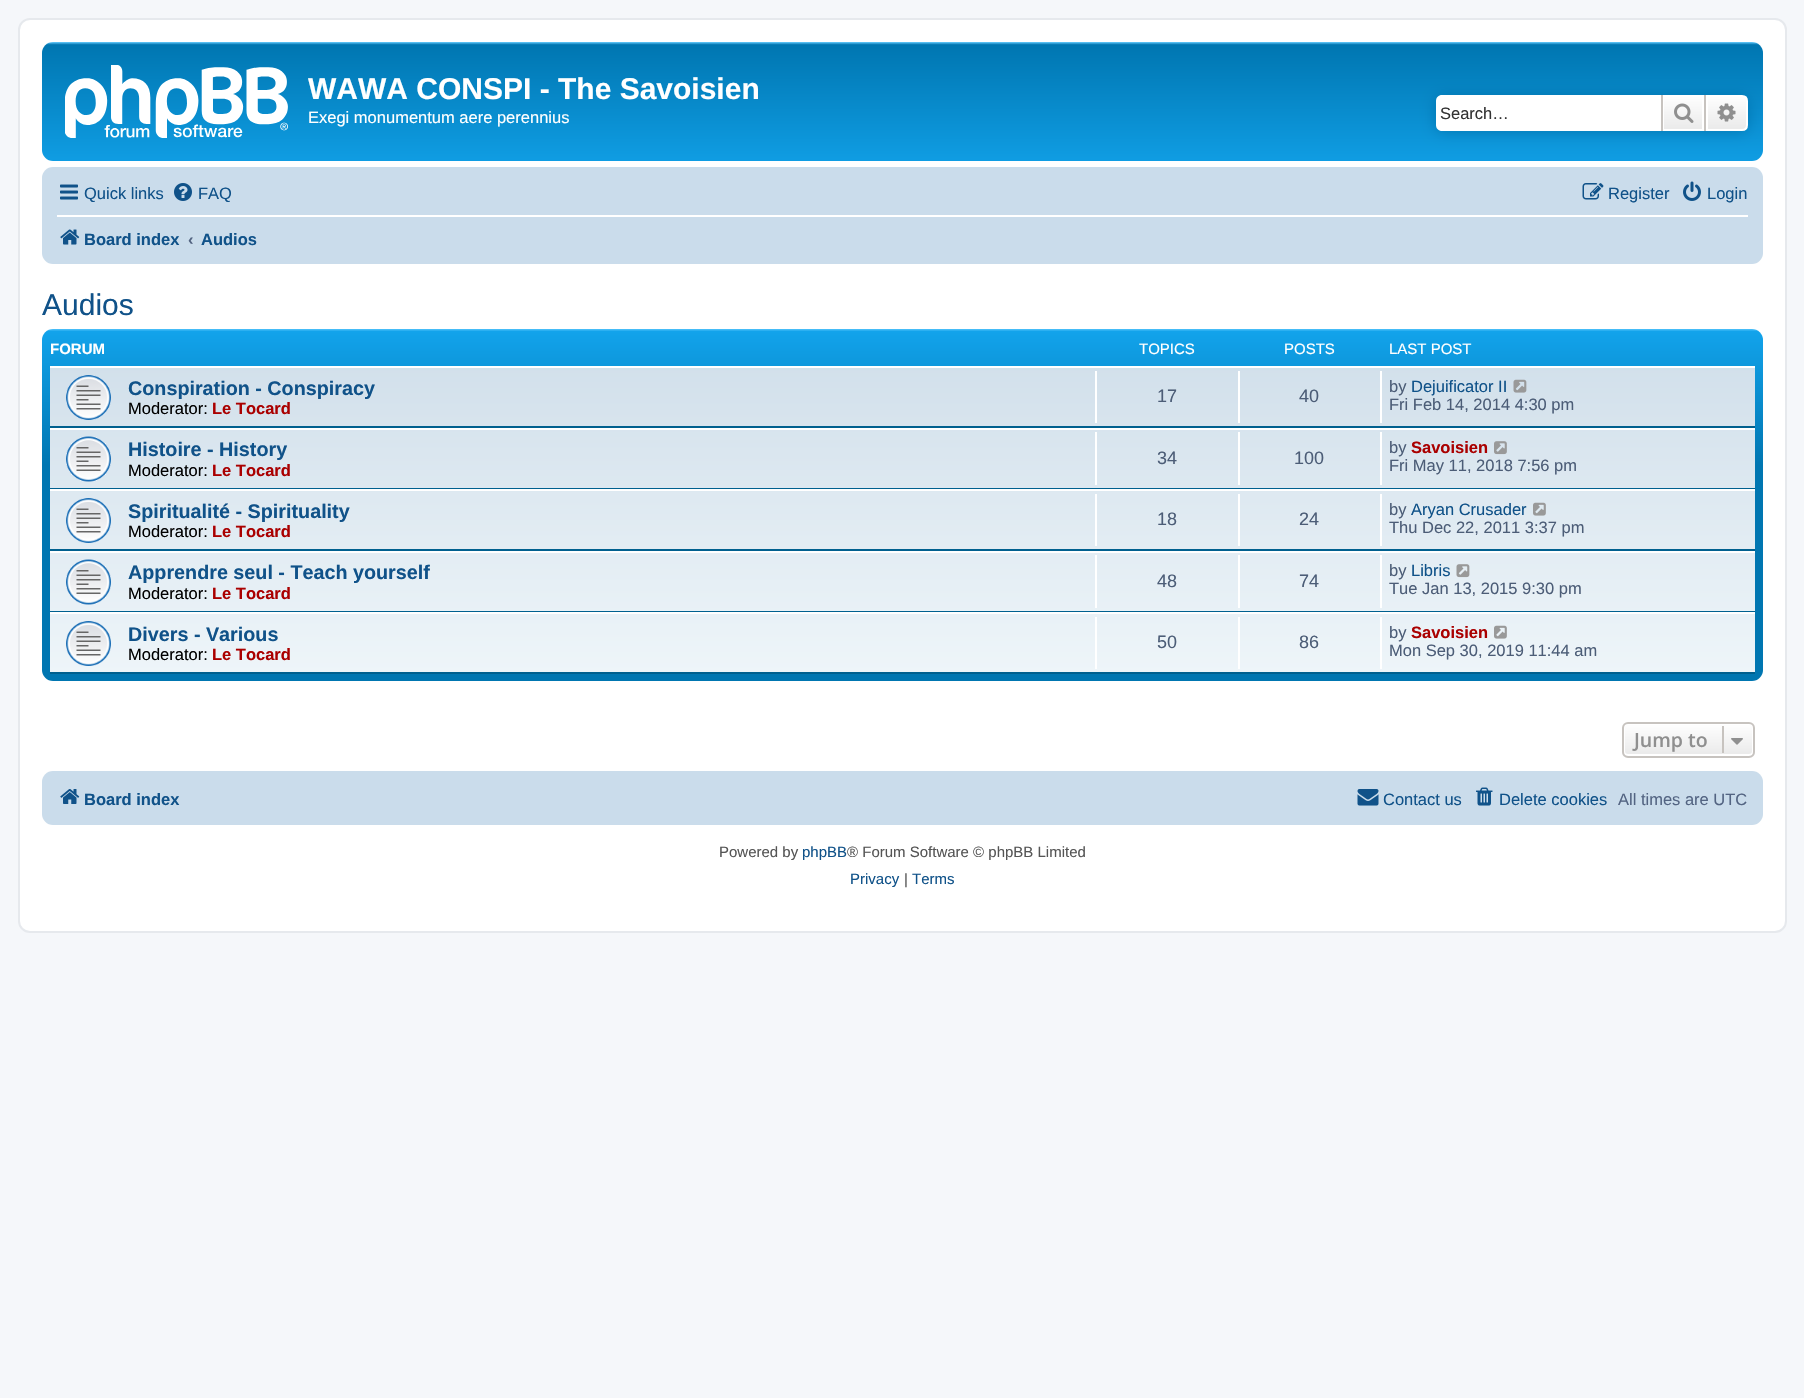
void draw(SkCanvas* canvas) {
    SkPaint paint;
    paint.setAntiAlias(true);
    canvas->clear(0xFFF5F7FA);
    paint.setColor(0xFFFFFFFF);
    canvas->drawRoundRect(SkRect::MakeXYWH(19, 19, 1767, 913), 11, 11, paint);
    paint.setStyle(SkPaint::kStroke_Style);
    paint.setStrokeWidth(2);
    paint.setColor(0xFFE6E9ED);
    canvas->drawRoundRect(SkRect::MakeXYWH(19, 19, 1767, 913), 11, 11, paint);
    paint.setStyle(SkPaint::kFill_Style);
    {
        const SkColor colors[] = {0xFF6ACEFF, 0xFF0076B1, 0xFF12A3EB};
        const float stops[] = {0, 0.02f, 1};
        const SkPoint ends[] = {{902, 42}, {902, 180}};
        paint.setShader(SkGradientShader::MakeLinear(ends, colors, stops, 3, SkTileMode::kClamp));
        paint.setAlpha(255);
    }
    canvas->drawRoundRect(SkRect::MakeXYWH(42, 42, 1721, 119), 11, 11, paint);
    canvas->drawImageRect(SkImages::DeferredFromEncodedData(SkData::MakeFromFileName("img1.png")), SkRect::MakeXYWH(65, 65, 223, 73), SkSamplingOptions());
    SkFont font1(fontMgr->matchFamilyStyle("Liberation Sans", SkFontStyle::Bold()), 30);
    font1.setSubpixel(true);
    paint.setShader(nullptr);
    paint.setColor(0xFFFFFFFF);
    canvas->drawString("WAWA CONSPI - The Savoisien", 308, 99, font1, paint);
    SkFont font2(fontMgr->matchFamilyStyle("Liberation Sans", SkFontStyle::Normal()), 16.5f);
    font2.setSubpixel(true);
    canvas->drawString("Exegi monumentum aere perennius", 308, 123, font2, paint);
    paint.setColor(0xFF0075B0);
    paint.setMaskFilter(SkMaskFilter::MakeBlur(kNormal_SkBlurStyle, 7.5f));
    canvas->drawRoundRect(SkRect::MakeXYWH(1436, 95, 312, 36), 6, 6, paint);
    paint.setMaskFilter(nullptr);
    paint.setColor(0xFFFFFFFF);
    canvas->drawPath(SkPathBuilder().moveTo(1442, 95).lineTo(1661, 95).lineTo(1661, 131).lineTo(1442, 131).cubicTo(1438.5f, 131, 1436, 128.5f, 1436, 125).lineTo(1436, 101).cubicTo(1436, 97.5f, 1438.5f, 95, 1442, 95).close().detach(), paint);
    paint.setColor(0xFF333333);
    canvas->drawString("Search…", 1440, 119, font2, paint);
    {
        const SkColor colors[] = {0xFFFFFFFF, 0xFFE9E9E9};
        const float stops[] = {0, 1};
        const SkPoint ends[] = {{1683, 95}, {1683, 131}};
        paint.setShader(SkGradientShader::MakeLinear(ends, colors, stops, 2, SkTileMode::kClamp));
        paint.setAlpha(255);
    }
    canvas->drawRect(SkRect::MakeXYWH(1664, 97, 38, 32), paint);
    paint.setStyle(SkPaint::kStroke_Style);
    paint.setShader(nullptr);
    paint.setColor(0xFFFFFFFF);
    canvas->drawRect(SkRect::MakeXYWH(1663, 96, 40, 34), paint);
    paint.setStyle(SkPaint::kFill_Style);
    paint.setColor(0xFFC7C3BF);
    canvas->drawRect(SkRect::MakeXYWH(1704, 95, 2, 36), paint);
    canvas->drawRect(SkRect::MakeXYWH(1661, 95, 2, 36), paint);
    canvas->drawImageRect(SkImages::DeferredFromEncodedData(SkData::MakeFromFileName("img2.png")), SkRect::MakeXYWH(1674, 103, 20, 20), SkSamplingOptions());
    {
        const SkColor colors[] = {0xFFFFFFFF, 0xFFE9E9E9};
        const float stops[] = {0, 1};
        const SkPoint ends[] = {{1727, 95}, {1727, 131}};
        paint.setShader(SkGradientShader::MakeLinear(ends, colors, stops, 2, SkTileMode::kClamp));
        paint.setAlpha(255);
    }
    canvas->drawPath(SkPathBuilder().moveTo(1707, 96).lineTo(1742, 96).cubicTo(1745, 96, 1747, 98, 1747, 101).lineTo(1747, 125).cubicTo(1747, 128, 1745, 130, 1742, 130).lineTo(1707, 130).close().detach(), paint);
    paint.setStyle(SkPaint::kStroke_Style);
    paint.setShader(nullptr);
    paint.setColor(0xFFFFFFFF);
    canvas->drawPath(SkPathBuilder().moveTo(1707, 96).lineTo(1742, 96).cubicTo(1745, 96, 1747, 98, 1747, 101).lineTo(1747, 125).cubicTo(1747, 128, 1745, 130, 1742, 130).lineTo(1707, 130).close().detach(), paint);
    canvas->drawImageRect(SkImages::DeferredFromEncodedData(SkData::MakeFromFileName("img3.png")), SkRect::MakeXYWH(1717, 103, 19, 19), SkSamplingOptions());
    paint.setStyle(SkPaint::kFill_Style);
    paint.setColor(0xFFCADCEB);
    canvas->drawRoundRect(SkRect::MakeXYWH(42, 167, 1721, 97), 11, 11, paint);
    canvas->drawImageRect(SkImages::DeferredFromEncodedData(SkData::MakeFromFileName("img4.png")), SkRect::MakeXYWH(60, 184, 18, 16), SkSamplingOptions());
    paint.setColor(0xFF105289);
    canvas->drawString("Quick links", 84, 199, font2, paint);
    canvas->drawImageRect(SkImages::DeferredFromEncodedData(SkData::MakeFromFileName("img5.png")), SkRect::MakeXYWH(174, 183, 18, 18), SkSamplingOptions());
    canvas->drawString("FAQ", 198, 199, font2, paint);
    canvas->drawImageRect(SkImages::DeferredFromEncodedData(SkData::MakeFromFileName("img6.png")), SkRect::MakeXYWH(1582, 183, 22, 17), SkSamplingOptions());
    canvas->drawString("Register", 1608, 199, font2, paint);
    canvas->drawImageRect(SkImages::DeferredFromEncodedData(SkData::MakeFromFileName("img7.png")), SkRect::MakeXYWH(1683, 181, 18, 20), SkSamplingOptions());
    canvas->drawString("Login", 1707, 199, font2, paint);
    paint.setColor(0xFFFFFFFF);
    canvas->drawRect(SkRect::MakeXYWH(57, 215, 1691, 2), paint);
    canvas->drawImageRect(SkImages::DeferredFromEncodedData(SkData::MakeFromFileName("img8.png")), SkRect::MakeXYWH(60, 229, 20, 16), SkSamplingOptions());
    SkFont font3(fontMgr->matchFamilyStyle("Liberation Sans", SkFontStyle::Bold()), 16.5f);
    font3.setSubpixel(true);
    paint.setColor(0xFF105289);
    canvas->drawString("Board index", 84, 245, font3, paint);
    paint.setColor(0xFF536482);
    canvas->drawString("‹", 188, 245, font3, paint);
    paint.setColor(0xFF105289);
    canvas->drawString("Audios", 201, 245, font3, paint);
    SkFont font4(fontMgr->matchFamilyStyle("Liberation Sans", SkFontStyle::Normal()), 30);
    font4.setSubpixel(true);
    canvas->drawString("Audios", 42, 315, font4, paint);
    {
        const SkColor colors[] = {0xFF6ACEFF, 0xFF12A3EB, 0xFF0076B1, 0xFF0076B1};
        const float stops[] = {0, 0.01f, 0.39f, 1};
        const SkPoint ends[] = {{902, 328}, {902, 681}};
        paint.setShader(SkGradientShader::MakeLinear(ends, colors, stops, 4, SkTileMode::kClamp));
        paint.setAlpha(255);
    }
    canvas->drawRoundRect(SkRect::MakeXYWH(42, 329, 1721, 352), 11, 11, paint);
    SkFont font5(fontMgr->matchFamilyStyle("Liberation Sans", SkFontStyle::Bold()), 15);
    font5.setSubpixel(true);
    paint.setShader(nullptr);
    paint.setColor(0xFFFFFFFF);
    canvas->drawString("FORUM", 50, 354, font5, paint);
    SkFont font6(fontMgr->matchFamilyStyle("Liberation Sans", SkFontStyle::Normal()), 15);
    font6.setSubpixel(true);
    canvas->drawString("TOPICS", 1139, 354, font6, paint);
    canvas->drawString("POSTS", 1284, 354, font6, paint);
    canvas->drawString("LAST POST", 1389, 354, font6, paint);
    {
        const SkColor colors[] = {0xFFD2E0EB, 0xFFEEF5F9};
        const float stops[] = {0, 1};
        const SkPoint ends[] = {{902, 366}, {902, 674}};
        paint.setShader(SkGradientShader::MakeLinear(ends, colors, stops, 2, SkTileMode::kClamp));
        paint.setAlpha(255);
    }
    canvas->drawRect(SkRect::MakeXYWH(50, 368, 1705, 304), paint);
    paint.setShader(nullptr);
    paint.setColor(0xFFFFFFFF);
    canvas->drawRect(SkRect::MakeXYWH(50, 366, 1705, 2), paint);
    paint.setColor(0xFF00608F);
    canvas->drawRect(SkRect::MakeXYWH(50, 426, 1705, 2), paint);
    canvas->drawImageRect(SkImages::DeferredFromEncodedData(SkData::MakeFromFileName("img9.png")), SkRect::MakeXYWH(66, 375, 45, 45), SkSamplingOptions());
    SkFont font7(fontMgr->matchFamilyStyle("Liberation Sans", SkFontStyle::Bold()), 19.75f);
    font7.setSubpixel(true);
    paint.setColor(0xFF105289);
    canvas->drawString("Conspiration - Conspiracy", 128, 395, font7, paint);
    paint.setColor(0xFF000000);
    canvas->drawString("Moderator:", 128, 414, font2, paint);
    paint.setColor(0xFFAA0000);
    canvas->drawString("Le Tocard", 212, 414, font3, paint);
    paint.setColor(0xFFFFFFFF);
    canvas->drawRect(SkRect::MakeXYWH(1095, 371, 2, 52), paint);
    SkFont font8(fontMgr->matchFamilyStyle("Liberation Sans", SkFontStyle::Normal()), 18);
    font8.setSubpixel(true);
    paint.setColor(0xFF4C5D77);
    canvas->drawString("17", 1157, 402, font8, paint);
    paint.setColor(0xFFFFFFFF);
    canvas->drawRect(SkRect::MakeXYWH(1238, 371, 2, 52), paint);
    paint.setColor(0xFF4C5D77);
    canvas->drawString("40", 1299, 402, font8, paint);
    paint.setColor(0xFFFFFFFF);
    canvas->drawRect(SkRect::MakeXYWH(1380, 371, 2, 52), paint);
    paint.setColor(0xFF4C5D77);
    canvas->drawString("by", 1389, 392, font2, paint);
    paint.setColor(0xFF105289);
    canvas->drawString("Dejuificator II", 1411, 392, font2, paint);
    canvas->drawImageRect(SkImages::DeferredFromEncodedData(SkData::MakeFromFileName("img10.png")), SkRect::MakeXYWH(1513, 379, 14, 14), SkSamplingOptions());
    paint.setColor(0xFF4C5D77);
    canvas->drawString("Fri Feb 14, 2014 4:30 pm", 1389, 410, font2, paint);
    paint.setColor(0xFFFFFFFF);
    canvas->drawRect(SkRect::MakeXYWH(50, 428, 1705, 2), paint);
    paint.setColor(0xFF00608F);
    canvas->drawRect(SkRect::MakeXYWH(50, 488, 1705, 1), paint);
    canvas->drawImageRect(SkImages::DeferredFromEncodedData(SkData::MakeFromFileName("img11.png")), SkRect::MakeXYWH(66, 436, 45, 46), SkSamplingOptions());
    paint.setColor(0xFF105289);
    canvas->drawString("Histoire - History", 128, 456, font7, paint);
    paint.setColor(0xFF000000);
    canvas->drawString("Moderator:", 128, 476, font2, paint);
    paint.setColor(0xFFAA0000);
    canvas->drawString("Le Tocard", 212, 476, font3, paint);
    paint.setColor(0xFFFFFFFF);
    canvas->drawRect(SkRect::MakeXYWH(1095, 432, 2, 53), paint);
    paint.setColor(0xFF4C5D77);
    canvas->drawString("34", 1157, 464, font8, paint);
    paint.setColor(0xFFFFFFFF);
    canvas->drawRect(SkRect::MakeXYWH(1238, 432, 2, 53), paint);
    paint.setColor(0xFF4C5D77);
    canvas->drawString("100", 1294, 464, font8, paint);
    paint.setColor(0xFFFFFFFF);
    canvas->drawRect(SkRect::MakeXYWH(1380, 432, 2, 53), paint);
    paint.setColor(0xFF4C5D77);
    canvas->drawString("by", 1389, 453, font2, paint);
    paint.setColor(0xFFAA0000);
    canvas->drawString("Savoisien", 1411, 453, font3, paint);
    canvas->drawImageRect(SkImages::DeferredFromEncodedData(SkData::MakeFromFileName("img12.png")), SkRect::MakeXYWH(1494, 441, 13, 14), SkSamplingOptions());
    paint.setColor(0xFF4C5D77);
    canvas->drawString("Fri May 11, 2018 7:56 pm", 1389, 471, font2, paint);
    paint.setColor(0xFFFFFFFF);
    canvas->drawRect(SkRect::MakeXYWH(50, 489, 1705, 2), paint);
    paint.setColor(0xFF00608F);
    canvas->drawRect(SkRect::MakeXYWH(50, 549, 1705, 2), paint);
    canvas->drawImageRect(SkImages::DeferredFromEncodedData(SkData::MakeFromFileName("img13.png")), SkRect::MakeXYWH(66, 498, 45, 45), SkSamplingOptions());
    paint.setColor(0xFF105289);
    canvas->drawString("Spiritualité - Spirituality", 128, 518, font7, paint);
    paint.setColor(0xFF000000);
    canvas->drawString("Moderator:", 128, 537, font2, paint);
    paint.setColor(0xFFAA0000);
    canvas->drawString("Le Tocard", 212, 537, font3, paint);
    paint.setColor(0xFFFFFFFF);
    canvas->drawRect(SkRect::MakeXYWH(1095, 494, 2, 52), paint);
    paint.setColor(0xFF4C5D77);
    canvas->drawString("18", 1157, 525, font8, paint);
    paint.setColor(0xFFFFFFFF);
    canvas->drawRect(SkRect::MakeXYWH(1238, 494, 2, 52), paint);
    paint.setColor(0xFF4C5D77);
    canvas->drawString("24", 1299, 525, font8, paint);
    paint.setColor(0xFFFFFFFF);
    canvas->drawRect(SkRect::MakeXYWH(1380, 494, 2, 52), paint);
    paint.setColor(0xFF4C5D77);
    canvas->drawString("by", 1389, 515, font2, paint);
    paint.setColor(0xFF105289);
    canvas->drawString("Aryan Crusader", 1411, 515, font2, paint);
    canvas->drawImageRect(SkImages::DeferredFromEncodedData(SkData::MakeFromFileName("img14.png")), SkRect::MakeXYWH(1533, 502, 13, 14), SkSamplingOptions());
    paint.setColor(0xFF4C5D77);
    canvas->drawString("Thu Dec 22, 2011 3:37 pm", 1389, 533, font2, paint);
    paint.setColor(0xFFFFFFFF);
    canvas->drawRect(SkRect::MakeXYWH(50, 551, 1705, 2), paint);
    paint.setColor(0xFF00608F);
    canvas->drawRect(SkRect::MakeXYWH(50, 611, 1705, 1), paint);
    canvas->drawImageRect(SkImages::DeferredFromEncodedData(SkData::MakeFromFileName("img15.png")), SkRect::MakeXYWH(66, 559, 45, 46), SkSamplingOptions());
    paint.setColor(0xFF105289);
    canvas->drawString("Apprendre seul - Teach yourself", 128, 579, font7, paint);
    paint.setColor(0xFF000000);
    canvas->drawString("Moderator:", 128, 599, font2, paint);
    paint.setColor(0xFFAA0000);
    canvas->drawString("Le Tocard", 212, 599, font3, paint);
    paint.setColor(0xFFFFFFFF);
    canvas->drawRect(SkRect::MakeXYWH(1095, 555, 2, 53), paint);
    paint.setColor(0xFF4C5D77);
    canvas->drawString("48", 1157, 587, font8, paint);
    paint.setColor(0xFFFFFFFF);
    canvas->drawRect(SkRect::MakeXYWH(1238, 555, 2, 53), paint);
    paint.setColor(0xFF4C5D77);
    canvas->drawString("74", 1299, 587, font8, paint);
    paint.setColor(0xFFFFFFFF);
    canvas->drawRect(SkRect::MakeXYWH(1380, 555, 2, 53), paint);
    paint.setColor(0xFF4C5D77);
    canvas->drawString("by", 1389, 576, font2, paint);
    paint.setColor(0xFF105289);
    canvas->drawString("Libris", 1411, 576, font2, paint);
    canvas->drawImageRect(SkImages::DeferredFromEncodedData(SkData::MakeFromFileName("img16.png")), SkRect::MakeXYWH(1456, 564, 14, 14), SkSamplingOptions());
    paint.setColor(0xFF4C5D77);
    canvas->drawString("Tue Jan 13, 2015 9:30 pm", 1389, 594, font2, paint);
    paint.setColor(0xFFFFFFFF);
    canvas->drawRect(SkRect::MakeXYWH(50, 612, 1705, 2), paint);
    paint.setColor(0xFF00608F);
    canvas->drawRect(SkRect::MakeXYWH(50, 672, 1705, 2), paint);
    canvas->drawImageRect(SkImages::DeferredFromEncodedData(SkData::MakeFromFileName("img17.png")), SkRect::MakeXYWH(66, 621, 45, 45), SkSamplingOptions());
    paint.setColor(0xFF105289);
    canvas->drawString("Divers - Various", 128, 641, font7, paint);
    paint.setColor(0xFF000000);
    canvas->drawString("Moderator:", 128, 660, font2, paint);
    paint.setColor(0xFFAA0000);
    canvas->drawString("Le Tocard", 212, 660, font3, paint);
    paint.setColor(0xFFFFFFFF);
    canvas->drawRect(SkRect::MakeXYWH(1095, 617, 2, 52), paint);
    paint.setColor(0xFF4C5D77);
    canvas->drawString("50", 1157, 648, font8, paint);
    paint.setColor(0xFFFFFFFF);
    canvas->drawRect(SkRect::MakeXYWH(1238, 617, 2, 52), paint);
    paint.setColor(0xFF4C5D77);
    canvas->drawString("86", 1299, 648, font8, paint);
    paint.setColor(0xFFFFFFFF);
    canvas->drawRect(SkRect::MakeXYWH(1380, 617, 2, 52), paint);
    paint.setColor(0xFF4C5D77);
    canvas->drawString("by", 1389, 638, font2, paint);
    paint.setColor(0xFFAA0000);
    canvas->drawString("Savoisien", 1411, 638, font3, paint);
    canvas->drawImageRect(SkImages::DeferredFromEncodedData(SkData::MakeFromFileName("img18.png")), SkRect::MakeXYWH(1494, 625, 13, 14), SkSamplingOptions());
    paint.setColor(0xFF4C5D77);
    canvas->drawString("Mon Sep 30, 2019 11:44 am", 1389, 656, font2, paint);
    canvas->save();
    canvas->clipPath(SkPathBuilder().moveTo(1628, 722).lineTo(1749, 722).cubicTo(1752.5f, 722, 1755, 724.5f, 1755, 728).lineTo(1755, 752).cubicTo(1755, 755.5f, 1752.5f, 758, 1749, 758).lineTo(1628, 758).cubicTo(1624.5f, 758, 1622, 755.5f, 1622, 752).lineTo(1622, 728).cubicTo(1622, 724.5f, 1624.5f, 722, 1628, 722).close().detach(), true);
    {
        const SkColor colors[] = {0xFFFFFFFF, 0xFFE9E9E9};
        const float stops[] = {0, 1};
        const SkPoint ends[] = {{1688, 723}, {1688, 756}};
        paint.setShader(SkGradientShader::MakeLinear(ends, colors, stops, 2, SkTileMode::kClamp));
        paint.setAlpha(255);
    }
    canvas->drawRect(SkRect::MakeXYWH(1622, 723, 133, 33), paint);
    canvas->restore();
    paint.setStyle(SkPaint::kStroke_Style);
    paint.setShader(nullptr);
    paint.setColor(0xFFFFFFFF);
    canvas->drawRoundRect(SkRect::MakeXYWH(1624, 724, 129, 31), 4, 4, paint);
    paint.setColor(0xFFC7C3BF);
    canvas->drawRoundRect(SkRect::MakeXYWH(1623, 723, 131, 34), 5, 5, paint);
    SkFont font9(fontMgr->matchFamilyStyle("Open Sans", SkFontStyle(600, SkFontStyle::kNormal_Width, SkFontStyle::kUpright_Slant)), 19.5f);
    font9.setSubpixel(true);
    paint.setStyle(SkPaint::kFill_Style);
    paint.setColor(0xFF8F8F8F);
    canvas->drawString("Jump to", 1634, 747, font9, paint);
    paint.setColor(0xFFC7C3BF);
    canvas->drawRect(SkRect::MakeXYWH(1722, 726, 2, 27), paint);
    canvas->drawImageRect(SkImages::DeferredFromEncodedData(SkData::MakeFromFileName("img19.png")), SkRect::MakeXYWH(1731, 738, 12, 7), SkSamplingOptions());
    paint.setColor(0xFFCADCEB);
    canvas->drawRoundRect(SkRect::MakeXYWH(42, 771, 1721, 54), 11, 11, paint);
    canvas->drawImageRect(SkImages::DeferredFromEncodedData(SkData::MakeFromFileName("img20.png")), SkRect::MakeXYWH(60, 789, 20, 15), SkSamplingOptions());
    paint.setColor(0xFF105289);
    canvas->drawString("Board index", 84, 805, font3, paint);
    canvas->drawImageRect(SkImages::DeferredFromEncodedData(SkData::MakeFromFileName("img21.png")), SkRect::MakeXYWH(1357, 789, 22, 17), SkSamplingOptions());
    canvas->drawString("Contact us", 1383, 805, font2, paint);
    canvas->drawImageRect(SkImages::DeferredFromEncodedData(SkData::MakeFromFileName("img22.png")), SkRect::MakeXYWH(1476, 787, 17, 19), SkSamplingOptions());
    canvas->drawString("Delete cookies", 1499, 805, font2, paint);
    paint.setColor(0xFF536482);
    canvas->drawString("All times are UTC", 1618, 805, font2, paint);
    paint.setColor(0xFF555555);
    canvas->drawString("Powered by", 719, 857, font6, paint);
    paint.setColor(0xFF105289);
    canvas->drawString("phpBB", 802, 857, font6, paint);
    paint.setColor(0xFF555555);
    canvas->drawString("® Forum Software © phpBB Limited", 847, 857, font6, paint);
    paint.setColor(0xFF105289);
    canvas->drawString("Privacy", 850, 884, font6, paint);
    paint.setColor(0xFF555555);
    canvas->drawString("|", 904, 884, font6, paint);
    paint.setColor(0xFF105289);
    canvas->drawString("Terms", 912, 884, font6, paint);
}
